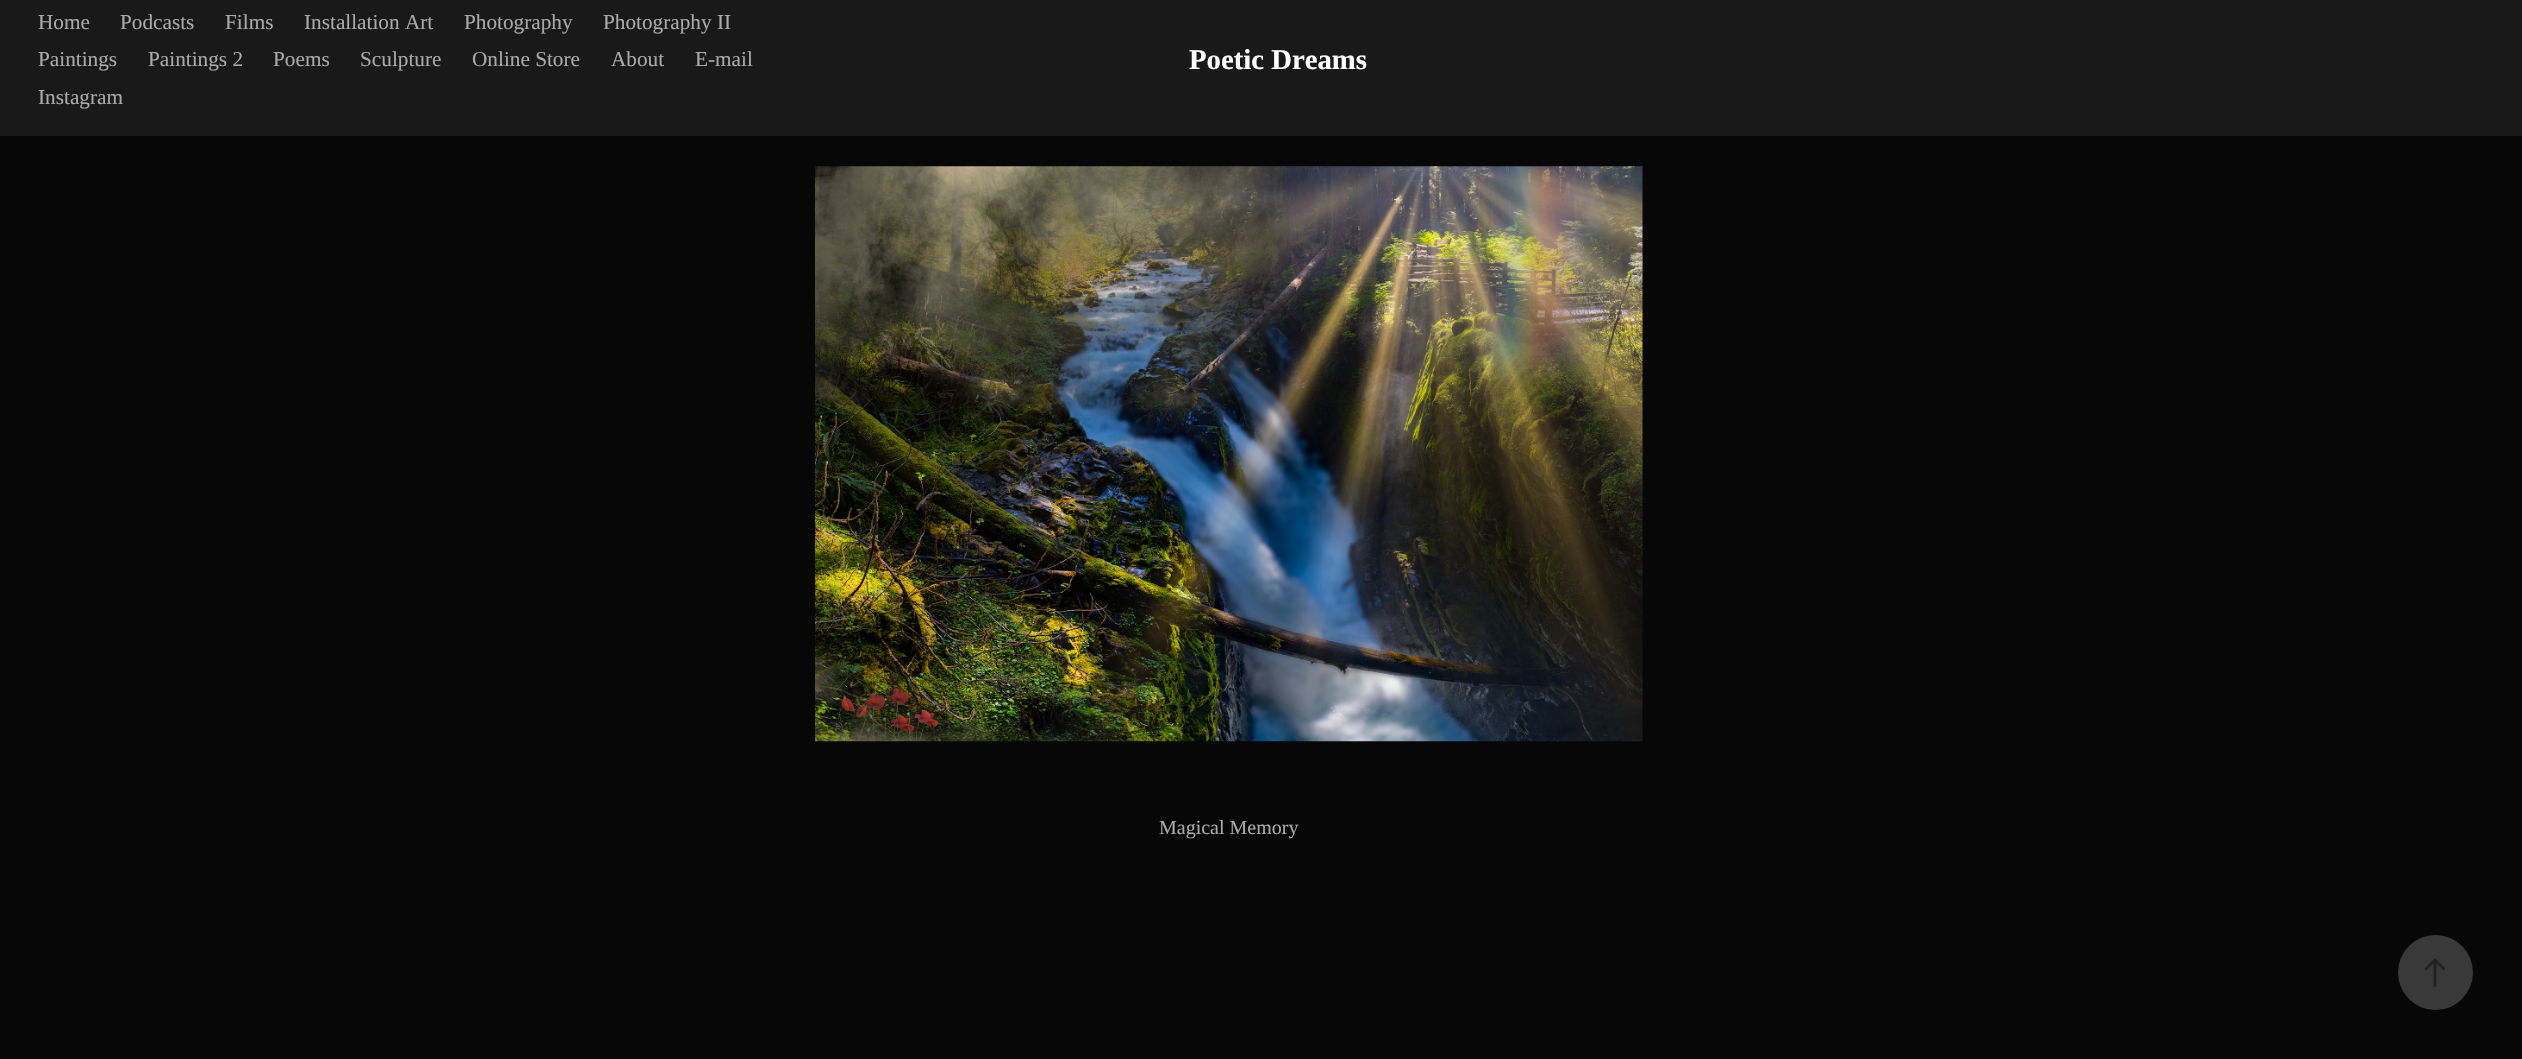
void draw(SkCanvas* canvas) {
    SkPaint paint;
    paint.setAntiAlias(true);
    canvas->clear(0xFF070707);
    paint.setColor(0xFF191919);
    canvas->drawRect(SkRect::MakeXYWH(0, 0, 2522, 136), paint);
    SkFont font1(fontMgr->matchFamilyStyle("Liberation Serif", SkFontStyle::Normal()), 21.25f);
    font1.setSubpixel(true);
    paint.setColor(0xFFA9A9A9);
    canvas->drawString("Home", 38, 29, font1, paint);
    canvas->drawString("Podcasts", 120, 29, font1, paint);
    canvas->drawString("Films", 225, 29, font1, paint);
    canvas->drawString("Installation Art", 304, 29, font1, paint);
    canvas->drawString("Photography", 464, 29, font1, paint);
    canvas->drawString("Photography II", 603, 29, font1, paint);
    canvas->drawString("Paintings", 38, 66, font1, paint);
    canvas->drawString("Paintings 2", 148, 66, font1, paint);
    canvas->drawString("Poems", 273, 66, font1, paint);
    canvas->drawString("Sculpture", 360, 66, font1, paint);
    canvas->drawString("Online Store", 472, 66, font1, paint);
    canvas->drawString("About", 611, 66, font1, paint);
    canvas->drawString("E-mail", 695, 66, font1, paint);
    canvas->drawString("Instagram", 38, 104, font1, paint);
    SkFont font2(fontMgr->matchFamilyStyle("Liberation Serif", SkFontStyle::Bold()), 28.75f);
    font2.setSubpixel(true);
    paint.setColor(0xFFFFFFFF);
    canvas->drawString("Poetic Dreams", 1189, 69, font2, paint);
    canvas->drawImageRect(SkImages::DeferredFromEncodedData(SkData::MakeFromFileName("img1.png")), SkRect::MakeXYWH(815, 166, 828, 576), SkSamplingOptions());
    SkFont font3(fontMgr->matchFamilyStyle("Liberation Serif", SkFontStyle::Normal()), 20);
    font3.setSubpixel(true);
    paint.setColor(0xFFA9A9A9);
    canvas->drawString("Magical Memory", 1159, 834, font3, paint);
    paint.setColor(0xFF393939);
    canvas->drawCircle(2435.5f, 972.5f, 37.5f, paint);
    canvas->drawImageRect(SkImages::DeferredFromEncodedData(SkData::MakeFromFileName("img2.png")), SkRect::MakeXYWH(2425, 958, 21, 29), SkSamplingOptions());
}
